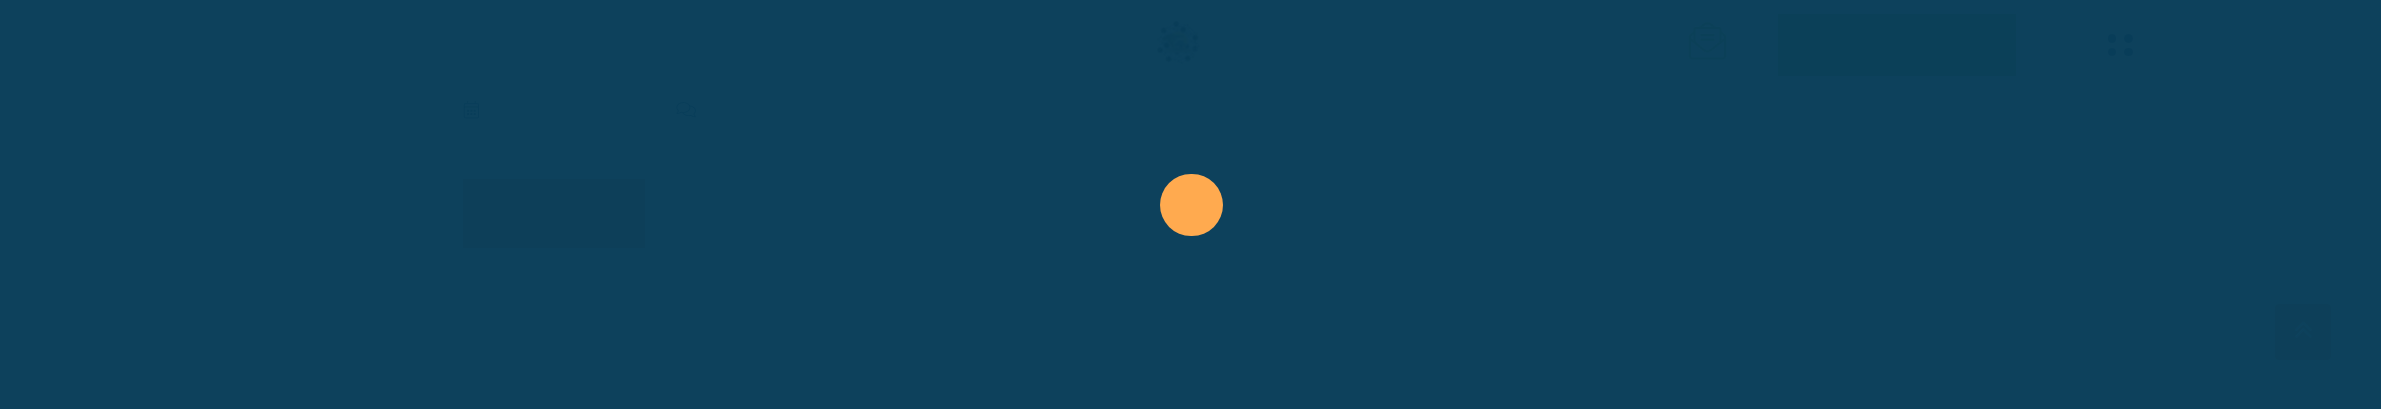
void draw(SkCanvas* canvas) {
    SkPaint paint;
    paint.setAntiAlias(true);
    canvas->clear(0xFF0D415C);
    canvas->drawImageRect(SkImages::DeferredFromEncodedData(SkData::MakeFromFileName("img1.png")), SkRect::MakeXYWH(1156, 20, 45, 45), SkSamplingOptions());
    canvas->drawImageRect(SkImages::DeferredFromEncodedData(SkData::MakeFromFileName("img2.png")), SkRect::MakeXYWH(1688, 22, 39, 38), SkSamplingOptions());
    paint.setColor(0xFF0B4058);
    canvas->drawRect(SkRect::MakeXYWH(1778, 14, 238, 62), paint);
    paint.setColor(0xFF083D59);
    canvas->drawRoundRect(SkRect::MakeXYWH(2108, 34, 8, 9), 4, 4, paint);
    canvas->drawCircle(2128.5f, 38.5f, 4.5f, paint);
    canvas->drawCircle(2112, 52, 4, paint);
    canvas->drawRoundRect(SkRect::MakeXYWH(2124, 48, 9, 8), 4, 4, paint);
    canvas->drawImageRect(SkImages::DeferredFromEncodedData(SkData::MakeFromFileName("img3.png")), SkRect::MakeXYWH(463, 100, 17, 19), SkSamplingOptions());
    canvas->drawImageRect(SkImages::DeferredFromEncodedData(SkData::MakeFromFileName("img4.png")), SkRect::MakeXYWH(676, 102, 20, 16), SkSamplingOptions());
    paint.setColor(0xFF0D3F59);
    canvas->drawRect(SkRect::MakeXYWH(463, 179, 182, 69), paint);
    paint.setColor(0xFFFFAA4F);
    canvas->drawRoundRect(SkRect::MakeXYWH(1160, 174, 63, 62), 31, 31, paint);
    paint.setColor(0xFF0D3F59);
    canvas->drawRoundRect(SkRect::MakeXYWH(2275, 304, 56, 56), 4, 4, paint);
    canvas->drawImageRect(SkImages::DeferredFromEncodedData(SkData::MakeFromFileName("img5.png")), SkRect::MakeXYWH(2295, 321, 17, 17), SkSamplingOptions());
}
